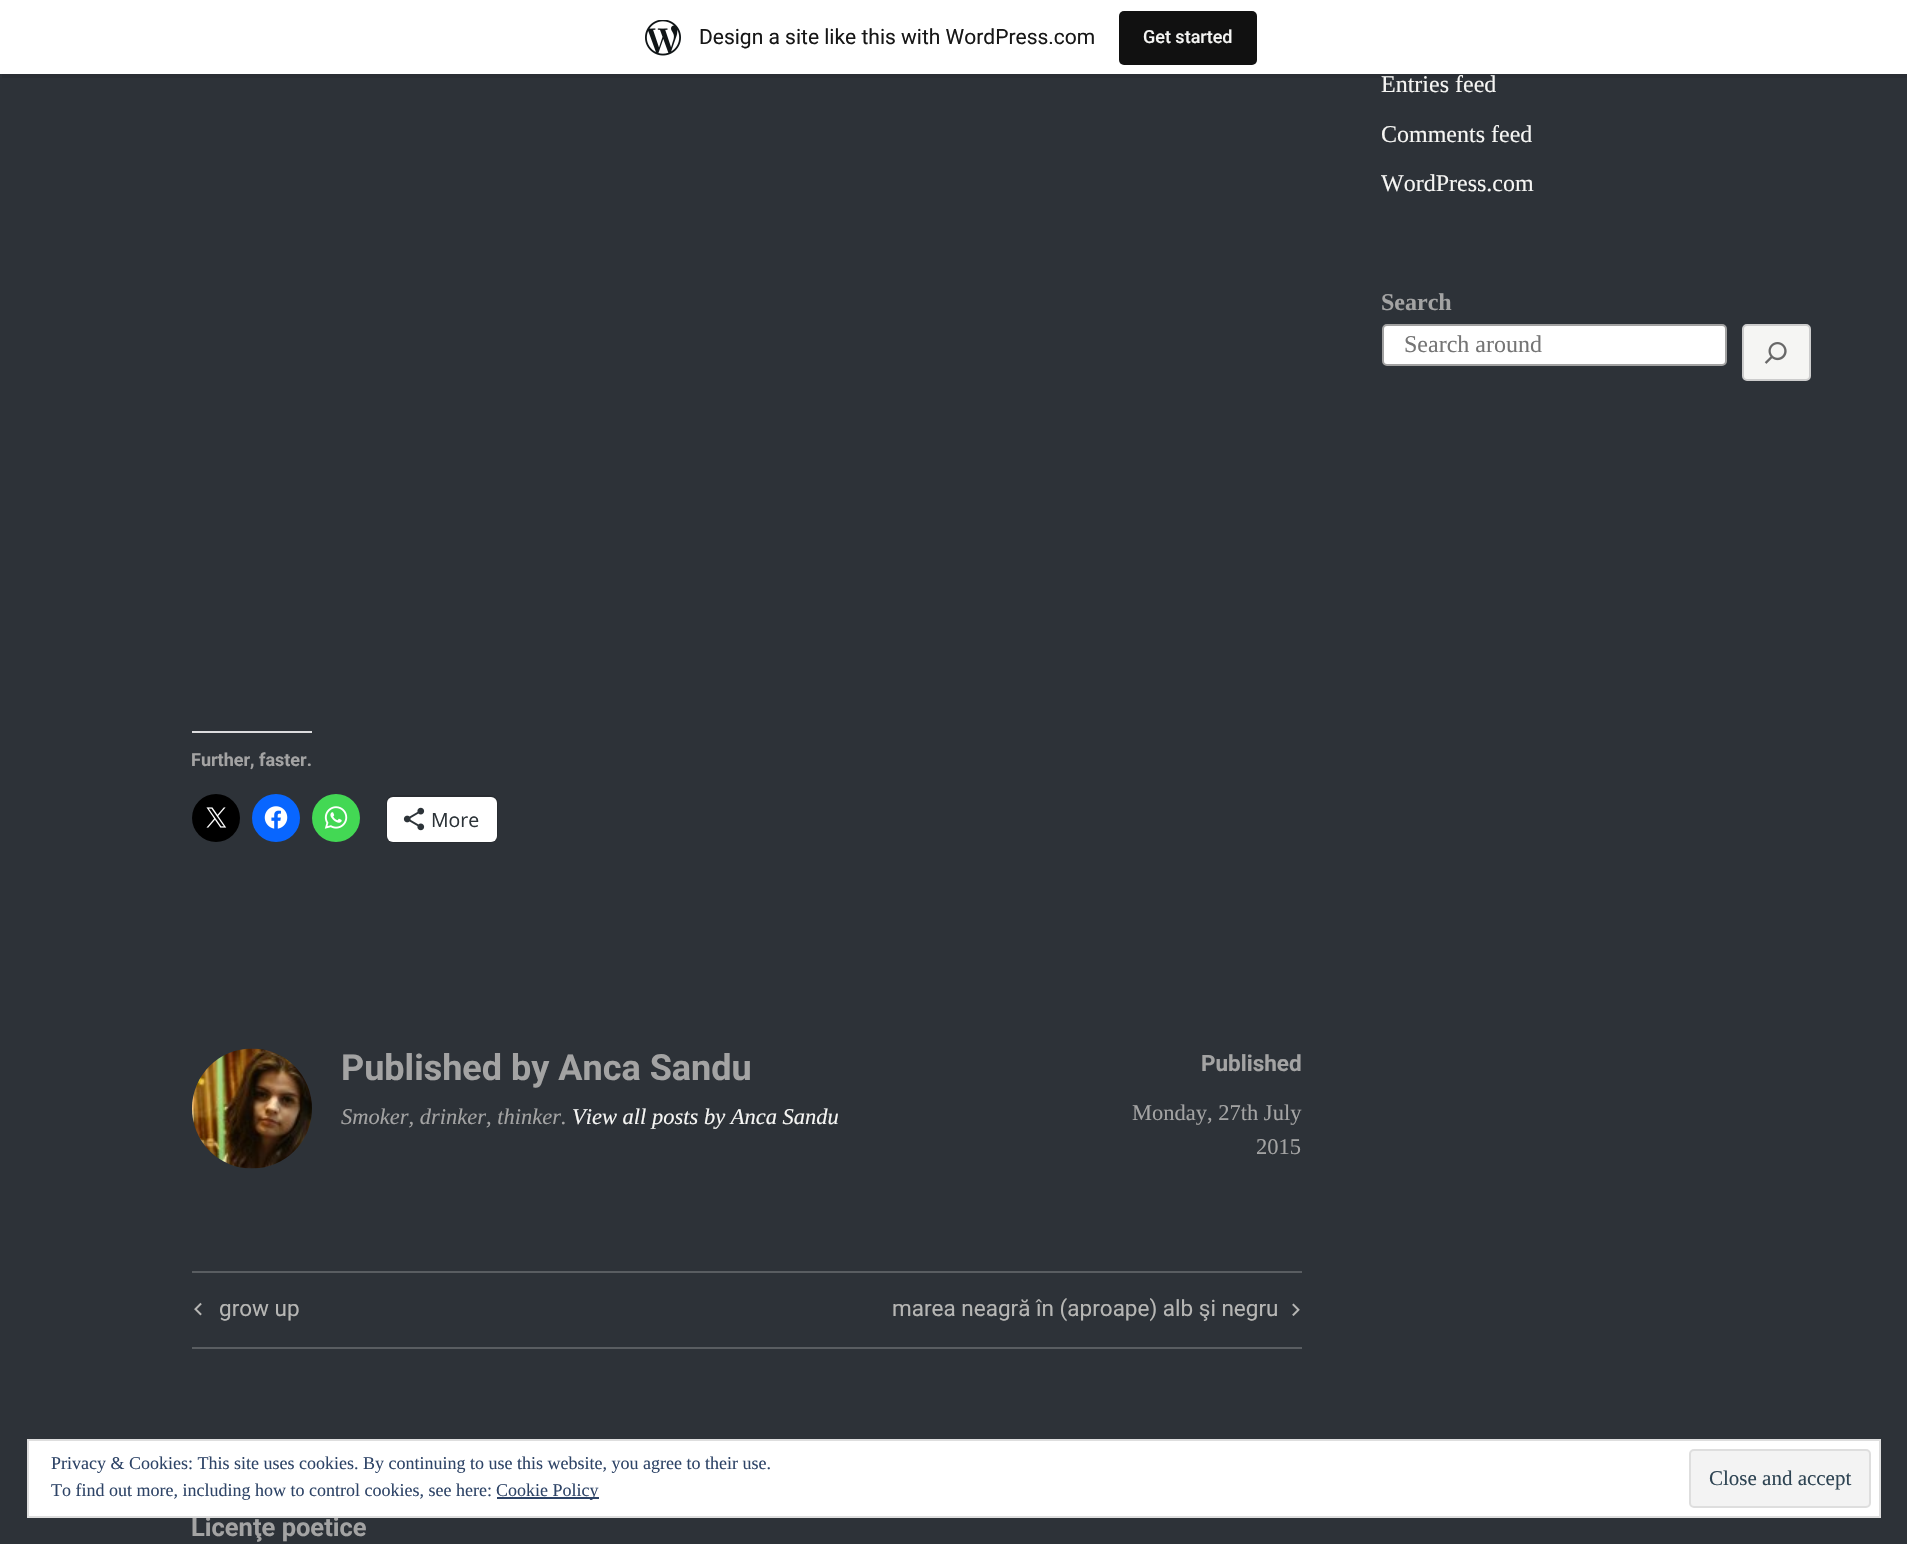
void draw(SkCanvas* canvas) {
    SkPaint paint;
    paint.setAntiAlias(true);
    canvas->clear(0xFF2D3238);
    paint.setColor(0x14000000);
    canvas->drawPath(SkPathBuilder().moveTo(2, 74).lineTo(2, 78).lineTo(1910, 78).lineTo(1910, 5).lineTo(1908, 5).lineTo(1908, 74).close().detach(), paint);
    paint.setColor(0xFFFFFFFF);
    canvas->drawRect(SkRect::MakeXYWH(0, 0, 1907, 74), paint);
    canvas->drawImageRect(SkImages::DeferredFromEncodedData(SkData::MakeFromFileName("img1.png")), SkRect::MakeXYWH(645, 20, 36, 36), SkSamplingOptions());
    SkFont font1(fontMgr->matchFamilyStyle("Roboto", SkFontStyle::Normal()), 21);
    font1.setSubpixel(true);
    paint.setColor(0xFF171717);
    canvas->drawString("Design a site like this with WordPress.com", 699, 44, font1, paint);
    paint.setColor(0xFF111111);
    canvas->drawRoundRect(SkRect::MakeXYWH(1119, 11, 138, 54), 5, 5, paint);
    SkFont font2(fontMgr->matchFamilyStyle("Roboto", SkFontStyle(500, SkFontStyle::kNormal_Width, SkFontStyle::kUpright_Slant)), 18);
    font2.setSubpixel(true);
    paint.setColor(0xFFF5F5F3);
    canvas->drawString("Get started", 1143, 43, font2, paint);
    SkFont font3(fontMgr->matchFamilyStyle("Liberation Serif", SkFontStyle::Normal()), 24);
    font3.setSubpixel(true);
    canvas->drawString("Entries feed", 1381, 92, font3, paint);
    canvas->drawString("Comments feed", 1381, 142, font3, paint);
    canvas->drawString("WordPress.com", 1381, 191, font3, paint);
    SkFont font4(fontMgr->matchFamilyStyle("Liberation Serif", SkFontStyle::Bold()), 24);
    font4.setSubpixel(true);
    paint.setColor(0xFFA3A3A3);
    canvas->drawString("Search", 1381, 310, font4, paint);
    paint.setColor(0xFFFFFFFF);
    canvas->drawRoundRect(SkRect::MakeXYWH(1383, 325, 343, 40), 4, 4, paint);
    paint.setStyle(SkPaint::kStroke_Style);
    paint.setStrokeWidth(2);
    paint.setColor(0xFFA1A1A1);
    canvas->drawRoundRect(SkRect::MakeXYWH(1383, 325, 343, 40), 4, 4, paint);
    paint.setStyle(SkPaint::kFill_Style);
    paint.setColor(0xFF757575);
    canvas->drawString("Search around", 1404, 352, font3, paint);
    paint.setColor(0xFFF5F5F3);
    canvas->drawRoundRect(SkRect::MakeXYWH(1743, 325, 67, 55), 4, 4, paint);
    paint.setStyle(SkPaint::kStroke_Style);
    paint.setColor(0xFFCCCCCC);
    canvas->drawRoundRect(SkRect::MakeXYWH(1743, 325, 67, 55), 4, 4, paint);
    canvas->drawImageRect(SkImages::DeferredFromEncodedData(SkData::MakeFromFileName("img2.png")), SkRect::MakeXYWH(1764, 342, 23, 22), SkSamplingOptions());
    paint.setStyle(SkPaint::kFill_Style);
    paint.setColor(0xFFDCDCDE);
    canvas->drawRect(SkRect::MakeXYWH(192, 731, 120, 2), paint);
    SkFont font5(fontMgr->matchFamilyStyle("Roboto", SkFontStyle::Bold()), 18);
    font5.setSubpixel(true);
    paint.setColor(0xFFA3A3A3);
    canvas->drawString("Further, faster.", 191, 766, font5, paint);
    paint.setColor(0xFF000000);
    canvas->drawCircle(216, 818, 24, paint);
    canvas->drawImageRect(SkImages::DeferredFromEncodedData(SkData::MakeFromFileName("img3.png")), SkRect::MakeXYWH(206, 807, 21, 21), SkSamplingOptions());
    paint.setColor(0xFF0866FF);
    canvas->drawCircle(276, 818, 24, paint);
    canvas->drawImageRect(SkImages::DeferredFromEncodedData(SkData::MakeFromFileName("img4.png")), SkRect::MakeXYWH(264, 806, 24, 23), SkSamplingOptions());
    paint.setColor(0xFF43D854);
    canvas->drawCircle(336, 818, 24, paint);
    canvas->drawImageRect(SkImages::DeferredFromEncodedData(SkData::MakeFromFileName("img5.png")), SkRect::MakeXYWH(324, 806, 24, 23), SkSamplingOptions());
    paint.setStyle(SkPaint::kStroke_Style);
    paint.setColor(0xFF282C31);
    canvas->drawRoundRect(SkRect::MakeXYWH(387, 796, 110, 46), 7, 7, paint);
    paint.setStyle(SkPaint::kFill_Style);
    paint.setColor(0xFFFFFFFF);
    canvas->drawRoundRect(SkRect::MakeXYWH(387, 797, 110, 45), 6, 6, paint);
    canvas->drawImageRect(SkImages::DeferredFromEncodedData(SkData::MakeFromFileName("img6.png")), SkRect::MakeXYWH(403, 807, 22, 24), SkSamplingOptions());
    SkFont font6(fontMgr->matchFamilyStyle("Open Sans", SkFontStyle::Normal()), 19.5f);
    font6.setSubpixel(true);
    paint.setColor(0xFF2C3338);
    canvas->drawString("More", 431, 827, font6, paint);
    canvas->drawImageRect(SkImages::DeferredFromEncodedData(SkData::MakeFromFileName("img7.png")), SkRect::MakeXYWH(192, 1048, 120, 121), SkSamplingOptions());
    SkFont font7(fontMgr->matchFamilyStyle("Roboto", SkFontStyle::Bold()), 36);
    font7.setSubpixel(true);
    paint.setColor(0xFFA3A3A3);
    canvas->drawString("Published by Anca Sandu", 341, 1080, font7, paint);
    SkFont font8(fontMgr->matchFamilyStyle("Liberation Serif", SkFontStyle::Italic()), 22.5f);
    font8.setSubpixel(true);
    canvas->drawString("Smoker, drinker, thinker.", 341, 1124, font8, paint);
    paint.setColor(0xFFF5F5F3);
    canvas->drawString("View all posts by Anca Sandu", 572, 1124, font8, paint);
    SkFont font9(fontMgr->matchFamilyStyle("Roboto", SkFontStyle::Bold()), 22.5f);
    font9.setSubpixel(true);
    paint.setColor(0xFFA3A3A3);
    canvas->drawString("Published", 1201, 1071, font9, paint);
    SkFont font10(fontMgr->matchFamilyStyle("Liberation Serif", SkFontStyle::Normal()), 22.5f);
    font10.setSubpixel(true);
    canvas->drawString("Monday, 27th July", 1132, 1120, font10, paint);
    canvas->drawString("2015", 1256, 1154, font10, paint);
    paint.setColor(0xFF595D61);
    canvas->drawRect(SkRect::MakeXYWH(192, 1271, 1110, 2), paint);
    canvas->drawRect(SkRect::MakeXYWH(192, 1347, 1110, 2), paint);
    canvas->drawImageRect(SkImages::DeferredFromEncodedData(SkData::MakeFromFileName("img8.png")), SkRect::MakeXYWH(194, 1302, 8, 14), SkSamplingOptions());
    SkFont font11(fontMgr->matchFamilyStyle("Roboto", SkFontStyle::Normal()), 22.5f);
    font11.setSubpixel(true);
    paint.setColor(0xFFB6B6B4);
    canvas->drawString("grow up", 219, 1316, font11, paint);
    canvas->drawString("marea neagră în (aproape) alb şi negru", 892, 1316, font11, paint);
    canvas->drawImageRect(SkImages::DeferredFromEncodedData(SkData::MakeFromFileName("img9.png")), SkRect::MakeXYWH(1292, 1303, 8, 13), SkSamplingOptions());
    SkFont font12(fontMgr->matchFamilyStyle("Roboto", SkFontStyle::Bold()), 25.5f);
    font12.setSubpixel(true);
    paint.setColor(0xFFA3A3A3);
    canvas->drawString("Licenţe poetice", 191, 1536, font12, paint);
    paint.setColor(0xFFFFFFFF);
    canvas->drawRect(SkRect::MakeXYWH(28, 1440, 1852, 77), paint);
    paint.setStyle(SkPaint::kStroke_Style);
    paint.setColor(0xFFDEDEDE);
    canvas->drawRect(SkRect::MakeXYWH(28, 1440, 1852, 77), paint);
    SkFont font13(fontMgr->matchFamilyStyle("Liberation Serif", SkFontStyle::Normal()), 18);
    font13.setSubpixel(true);
    paint.setStyle(SkPaint::kFill_Style);
    paint.setColor(0xFF2E4467);
    canvas->drawString("Privacy & Cookies: This site uses cookies. By continuing to use this website, you agree to their use.", 51, 1469, font13, paint);
    canvas->drawString("To find out more, including how to control cookies, see here:", 51, 1496, font13, paint);
    canvas->drawRect(SkRect::MakeXYWH(497, 1497, 102, 2), paint);
    canvas->drawString("Cookie Policy", 496, 1496, font13, paint);
    paint.setColor(0xFFF3F3F3);
    canvas->drawRoundRect(SkRect::MakeXYWH(1690, 1450, 180, 57), 4, 4, paint);
    paint.setStyle(SkPaint::kStroke_Style);
    paint.setColor(0xFFDEDEDE);
    canvas->drawRoundRect(SkRect::MakeXYWH(1690, 1450, 180, 57), 4, 4, paint);
    SkFont font14(fontMgr->matchFamilyStyle("Liberation Serif", SkFontStyle::Normal()), 21);
    font14.setSubpixel(true);
    paint.setStyle(SkPaint::kFill_Style);
    paint.setColor(0xFF2E4453);
    canvas->drawString("Close and accept", 1709, 1485, font14, paint);
}
